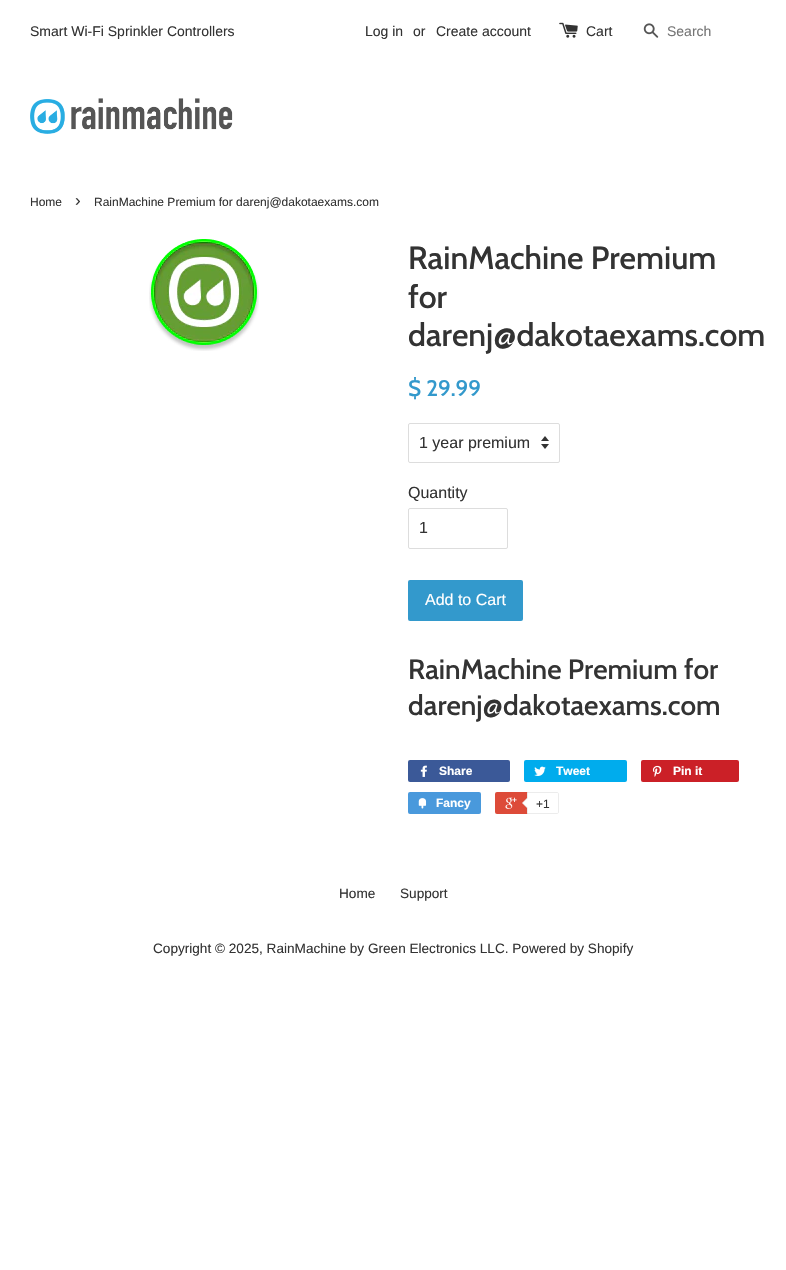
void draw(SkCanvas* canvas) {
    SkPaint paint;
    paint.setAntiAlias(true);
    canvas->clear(0xFFFFFFFF);
    SkFont font1(fontMgr->matchFamilyStyle("Liberation Sans", SkFontStyle::Normal()), 14);
    font1.setSubpixel(true);
    paint.setColor(0xFF333333);
    canvas->drawString("Smart Wi-Fi Sprinkler Controllers", 30, 36, font1, paint);
    canvas->drawString("Log in", 365, 36, font1, paint);
    canvas->drawString("or", 413, 36, font1, paint);
    canvas->drawString("Create account", 436, 36, font1, paint);
    canvas->drawImageRect(SkImages::DeferredFromEncodedData(SkData::MakeFromFileName("img1.png")), SkRect::MakeXYWH(559, 22, 19, 16), SkSamplingOptions());
    canvas->drawString("Cart", 586, 36, font1, paint);
    canvas->drawImageRect(SkImages::DeferredFromEncodedData(SkData::MakeFromFileName("img2.png")), SkRect::MakeXYWH(643, 23, 16, 15), SkSamplingOptions());
    paint.setColor(0xFF757575);
    canvas->drawString("Search", 667, 36, font1, paint);
    canvas->drawImageRect(SkImages::DeferredFromEncodedData(SkData::MakeFromFileName("img3.png")), SkRect::MakeXYWH(30, 98, 203, 36), SkSamplingOptions());
    SkFont font2(fontMgr->matchFamilyStyle("Liberation Sans", SkFontStyle::Normal()), 12);
    font2.setSubpixel(true);
    paint.setColor(0xFF333333);
    canvas->drawString("Home", 30, 206, font2, paint);
    SkFont font3(fontMgr->matchFamilyStyle("Liberation Sans", SkFontStyle::Normal()), 17);
    font3.setSubpixel(true);
    canvas->drawString("›", 75, 206, font3, paint);
    canvas->drawString("RainMachine Premium for darenj@dakotaexams.com", 94, 206, font2, paint);
    canvas->drawImageRect(SkImages::DeferredFromEncodedData(SkData::MakeFromFileName("img4.png")), SkRect::MakeXYWH(149, 239, 110, 112), SkSamplingOptions());
    SkFont font4(fontMgr->matchFamilyStyle("Cabin", SkFontStyle(500, SkFontStyle::kNormal_Width, SkFontStyle::kUpright_Slant)), 32);
    font4.setSubpixel(true);
    canvas->drawString("RainMachine Premium", 408, 269, font4, paint);
    canvas->drawString("for", 408, 308, font4, paint);
    canvas->drawString("darenj@dakotaexams.com", 408, 346, font4, paint);
    SkFont font5(fontMgr->matchFamilyStyle("Cabin", SkFontStyle(500, SkFontStyle::kNormal_Width, SkFontStyle::kUpright_Slant)), 22.5f);
    font5.setSubpixel(true);
    paint.setColor(0xFF3399CC);
    canvas->drawString("$ 29.99", 408, 396, font5, paint);
    canvas->drawImageRect(SkImages::DeferredFromEncodedData(SkData::MakeFromFileName("img5.png")), SkRect::MakeXYWH(541, 436, 8, 13), SkSamplingOptions());
    paint.setStyle(SkPaint::kStroke_Style);
    paint.setStrokeWidth(1);
    paint.setColor(0xFFDDDDDD);
    canvas->drawRoundRect(SkRect::MakeXYWH(408.5f, 423.5f, 151, 39), 1.5f, 1.5f, paint);
    SkFont font6(fontMgr->matchFamilyStyle("Liberation Sans", SkFontStyle::Normal()), 16);
    font6.setSubpixel(true);
    paint.setStyle(SkPaint::kFill_Style);
    paint.setColor(0xFF333333);
    canvas->drawString("1 year premium", 419, 448, font6, paint);
    canvas->drawString("Quantity", 408, 498, font6, paint);
    paint.setStyle(SkPaint::kStroke_Style);
    paint.setColor(0xFFDDDDDD);
    canvas->drawRoundRect(SkRect::MakeXYWH(408.5f, 508.5f, 99, 40), 1.5f, 1.5f, paint);
    paint.setStyle(SkPaint::kFill_Style);
    paint.setColor(0xFF333333);
    canvas->drawString("1", 419, 533, font6, paint);
    paint.setColor(0xFF3399CC);
    canvas->drawRoundRect(SkRect::MakeXYWH(408, 580, 115, 41), 2, 2, paint);
    paint.setColor(0xFFFFFFFF);
    canvas->drawString("Add to Cart", 425, 605, font6, paint);
    SkFont font7(fontMgr->matchFamilyStyle("Cabin", SkFontStyle(500, SkFontStyle::kNormal_Width, SkFontStyle::kUpright_Slant)), 28);
    font7.setSubpixel(true);
    paint.setColor(0xFF333333);
    canvas->drawString("RainMachine Premium for", 408, 679, font7, paint);
    canvas->drawString("darenj@dakotaexams.com", 408, 715, font7, paint);
    paint.setColor(0xFF3B5998);
    canvas->drawRoundRect(SkRect::MakeXYWH(408, 760, 102, 22), 2, 2, paint);
    canvas->drawImageRect(SkImages::DeferredFromEncodedData(SkData::MakeFromFileName("img6.png")), SkRect::MakeXYWH(420, 765, 7, 12), SkSamplingOptions());
    SkFont font8(fontMgr->matchFamilyStyle("Liberation Sans", SkFontStyle::Bold()), 12);
    font8.setSubpixel(true);
    paint.setColor(0xFFFFFFFF);
    canvas->drawString("Share", 439, 775, font8, paint);
    paint.setColor(0xFF00ACED);
    canvas->drawRoundRect(SkRect::MakeXYWH(524, 760, 103, 22), 2, 2, paint);
    canvas->drawImageRect(SkImages::DeferredFromEncodedData(SkData::MakeFromFileName("img7.png")), SkRect::MakeXYWH(534, 766, 12, 10), SkSamplingOptions());
    paint.setColor(0xFFFFFFFF);
    canvas->drawString("Tweet", 556, 775, font8, paint);
    paint.setColor(0xFFCB2027);
    canvas->drawRoundRect(SkRect::MakeXYWH(641, 760, 98, 22), 2, 2, paint);
    canvas->drawImageRect(SkImages::DeferredFromEncodedData(SkData::MakeFromFileName("img8.png")), SkRect::MakeXYWH(652, 765, 10, 12), SkSamplingOptions());
    paint.setColor(0xFFFFFFFF);
    canvas->drawString("Pin it", 673, 775, font8, paint);
    paint.setColor(0xFF4999DC);
    canvas->drawRoundRect(SkRect::MakeXYWH(408, 792, 73, 22), 2, 2, paint);
    canvas->drawImageRect(SkImages::DeferredFromEncodedData(SkData::MakeFromFileName("img9.png")), SkRect::MakeXYWH(418, 798, 9, 11), SkSamplingOptions());
    paint.setColor(0xFFFFFFFF);
    canvas->drawString("Fancy", 436, 807, font8, paint);
    paint.setColor(0xFFDD4B39);
    canvas->drawRoundRect(SkRect::MakeXYWH(495, 792, 62, 22), 2, 2, paint);
    canvas->drawImageRect(SkImages::DeferredFromEncodedData(SkData::MakeFromFileName("img10.png")), SkRect::MakeXYWH(505, 797, 12, 12), SkSamplingOptions());
    paint.setColor(0xFFFFFFFF);
    canvas->drawPath(SkPathBuilder().moveTo(527.5f, 792.5f).lineTo(557, 792.5f).cubicTo(558, 792.5f, 558.5f, 793, 558.5f, 794).lineTo(558.5f, 812).cubicTo(558.5f, 813, 558, 813.5f, 557, 813.5f).lineTo(527.5f, 813.5f).close().detach(), paint);
    paint.setStyle(SkPaint::kStroke_Style);
    paint.setColor(0xFFECECEC);
    canvas->drawPath(SkPathBuilder().moveTo(527.5f, 792.5f).lineTo(557, 792.5f).cubicTo(558, 792.5f, 558.5f, 793, 558.5f, 794).lineTo(558.5f, 812).cubicTo(558.5f, 813, 558, 813.5f, 557, 813.5f).lineTo(527.5f, 813.5f).close().detach(), paint);
    paint.setStyle(SkPaint::kFill_Style);
    canvas->drawPath(SkPathBuilder().moveTo(528, 797).lineTo(528, 809).lineTo(522, 803).close().detach(), paint);
    paint.setColor(0xFFFFFFFF);
    canvas->drawPath(SkPathBuilder().moveTo(529, 797).lineTo(529, 809).lineTo(523, 803).close().detach(), paint);
    paint.setColor(0xFF333333);
    canvas->drawString("+1", 536, 808, font2, paint);
    SkFont font9(fontMgr->matchFamilyStyle("Liberation Sans", SkFontStyle::Normal()), 13.6f);
    font9.setSubpixel(true);
    canvas->drawString("Home", 339, 898, font9, paint);
    canvas->drawString("Support", 400, 898, font9, paint);
    canvas->drawString("Copyright © 2025, RainMachine by Green Electronics LLC. Powered by Shopify", 153, 953, font9, paint);
}
